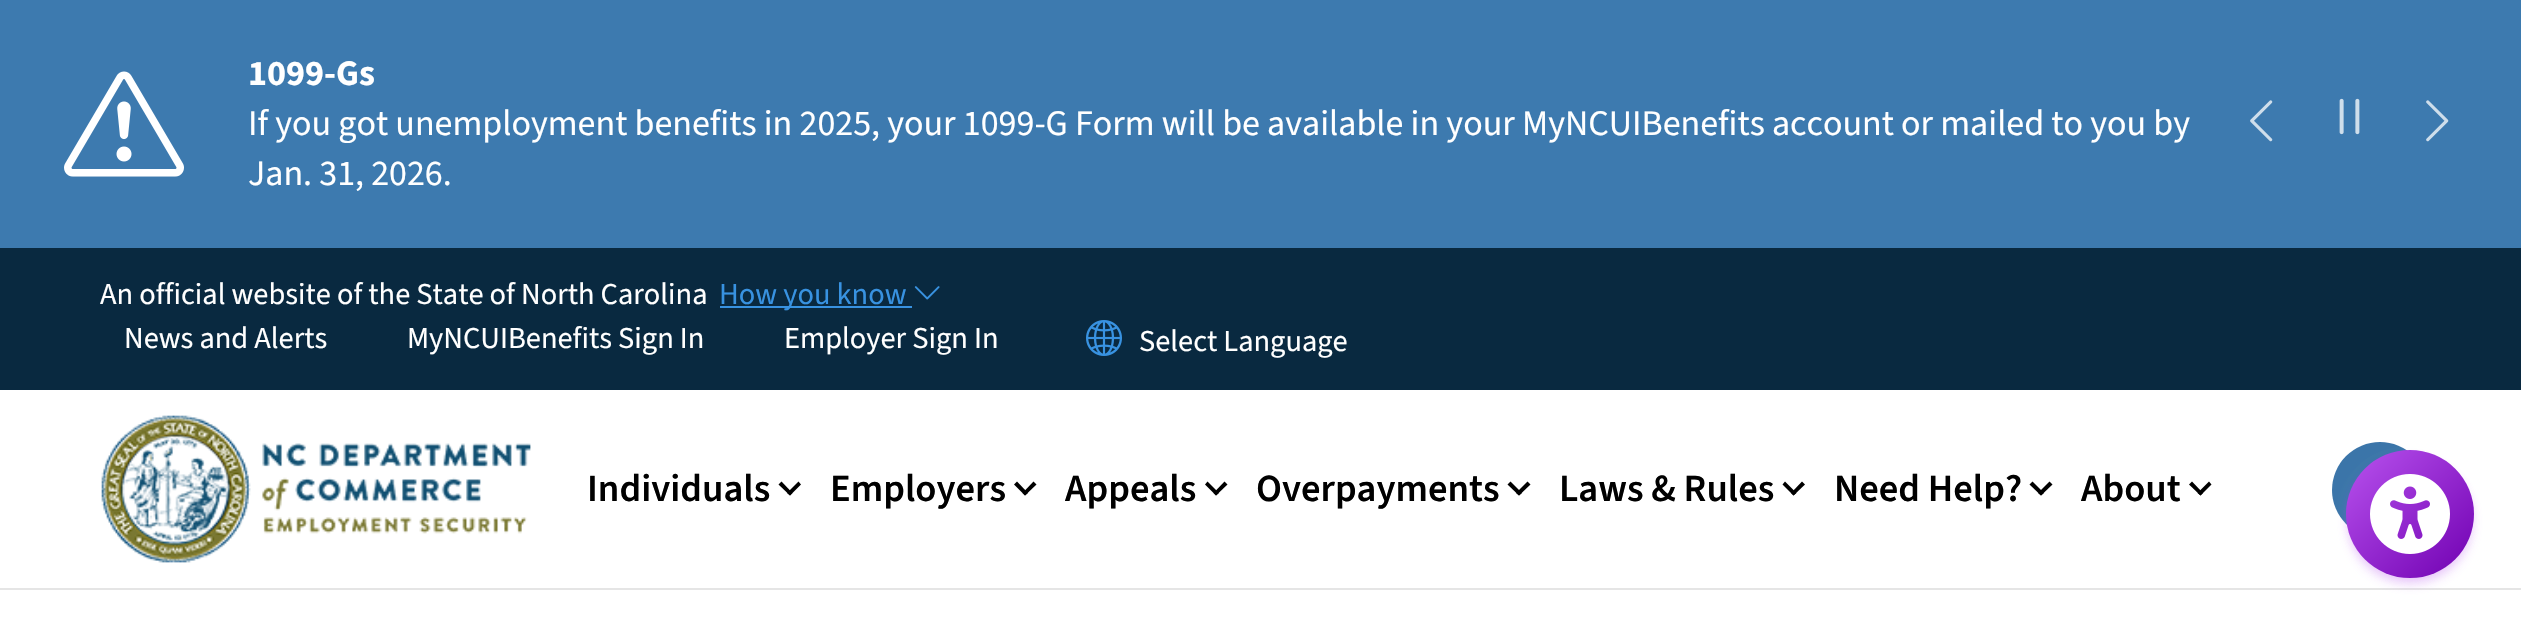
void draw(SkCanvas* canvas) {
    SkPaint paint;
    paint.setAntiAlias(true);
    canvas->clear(0xFFFFFFFF);
    paint.setColor(0xFFE5E5E5);
    canvas->drawRect(SkRect::MakeXYWH(0, 588, 2521, 2), paint);
    paint.setColor(0xFF3D7AAF);
    canvas->drawRect(SkRect::MakeXYWH(0, 0, 2521, 248), paint);
    canvas->drawImageRect(SkImages::DeferredFromEncodedData(SkData::MakeFromFileName("img1.png")), SkRect::MakeXYWH(64, 71, 120, 106), SkSamplingOptions());
    SkFont font1(fontMgr->matchFamilyStyle("Source Sans 3", SkFontStyle::Bold()), 36);
    font1.setSubpixel(true);
    paint.setColor(0xFFFFFFFF);
    canvas->drawString("1099-Gs", 248, 85, font1, paint);
    SkFont font2(fontMgr->matchFamilyStyle("Source Sans 3", SkFontStyle::Normal()), 36);
    font2.setSubpixel(true);
    canvas->drawString("If you got unemployment benefits in 2025, your 1099-G Form will be available in your MyNCUIBenefits account or mailed to you by", 248, 135, font2, paint);
    canvas->drawString("Jan. 31, 2026.", 248, 185, font2, paint);
    canvas->drawImageRect(SkImages::DeferredFromEncodedData(SkData::MakeFromFileName("img2.png")), SkRect::MakeXYWH(2250, 100, 23, 42), SkSamplingOptions());
    canvas->drawImageRect(SkImages::DeferredFromEncodedData(SkData::MakeFromFileName("img3.png")), SkRect::MakeXYWH(2339, 98, 21, 37), SkSamplingOptions());
    canvas->drawImageRect(SkImages::DeferredFromEncodedData(SkData::MakeFromFileName("img4.png")), SkRect::MakeXYWH(2426, 100, 23, 42), SkSamplingOptions());
    paint.setColor(0xFF092940);
    canvas->drawRect(SkRect::MakeXYWH(0, 248, 2521, 142), paint);
    SkFont font3(fontMgr->matchFamilyStyle("Source Sans 3", SkFontStyle::Normal()), 30.4f);
    font3.setSubpixel(true);
    paint.setColor(0xFFFFFFFF);
    canvas->drawString("An official website of the State of North Carolina", 100, 304, font3, paint);
    paint.setColor(0xFF3892E1);
    canvas->drawRect(SkRect::MakeXYWH(720, 306, 192, 2), paint);
    canvas->drawString("How you know", 719, 304, font3, paint);
    canvas->drawImageRect(SkImages::DeferredFromEncodedData(SkData::MakeFromFileName("img5.png")), SkRect::MakeXYWH(914, 286, 26, 14), SkSamplingOptions());
    paint.setColor(0xFFFFFFFF);
    canvas->drawString("News and Alerts", 124, 348, font3, paint);
    canvas->drawString("MyNCUIBenefits Sign In", 407, 348, font3, paint);
    canvas->drawString("Employer Sign In", 784, 348, font3, paint);
    canvas->drawImageRect(SkImages::DeferredFromEncodedData(SkData::MakeFromFileName("img6.png")), SkRect::MakeXYWH(1086, 320, 36, 36), SkSamplingOptions());
    canvas->drawString("Select Language", 1139, 351, font3, paint);
    canvas->drawImageRect(SkImages::DeferredFromEncodedData(SkData::MakeFromFileName("img7.png")), SkRect::MakeXYWH(101, 415, 430, 148), SkSamplingOptions());
    SkFont font4(fontMgr->matchFamilyStyle("Source Sans 3", SkFontStyle(600, SkFontStyle::kNormal_Width, SkFontStyle::kUpright_Slant)), 38.5f);
    font4.setSubpixel(true);
    paint.setColor(0xFF000000);
    canvas->drawString("Individuals", 587, 501, font4, paint);
    canvas->drawPath(SkPathBuilder().moveTo(798.5f, 481.5f).lineTo(801, 484.5f).lineTo(790, 495.5f).lineTo(787, 493).close().detach(), paint);
    canvas->drawPath(SkPathBuilder().moveTo(781.5f, 481.5f).lineTo(792.5f, 493).lineTo(790, 495.5f).lineTo(778.5f, 484.5f).close().detach(), paint);
    canvas->drawString("Employers", 830, 501, font4, paint);
    canvas->drawPath(SkPathBuilder().moveTo(1033.5f, 481.5f).lineTo(1036.5f, 484.5f).lineTo(1025, 495.5f).lineTo(1022.5f, 493).close().detach(), paint);
    canvas->drawPath(SkPathBuilder().moveTo(1017, 481.5f).lineTo(1028, 493).lineTo(1025, 495.5f).lineTo(1014, 484.5f).close().detach(), paint);
    canvas->drawString("Appeals", 1065, 501, font4, paint);
    canvas->drawPath(SkPathBuilder().moveTo(1224.5f, 481.5f).lineTo(1227.5f, 484.5f).lineTo(1216, 495.5f).lineTo(1213.5f, 493).close().detach(), paint);
    canvas->drawPath(SkPathBuilder().moveTo(1207.5f, 481.5f).lineTo(1219, 493).lineTo(1216, 495.5f).lineTo(1205, 484.5f).close().detach(), paint);
    canvas->drawString("Overpayments", 1256, 501, font4, paint);
    canvas->drawPath(SkPathBuilder().moveTo(1527.5f, 481.5f).lineTo(1530.5f, 484.5f).lineTo(1519, 495.5f).lineTo(1516, 493).close().detach(), paint);
    canvas->drawPath(SkPathBuilder().moveTo(1510.5f, 481.5f).lineTo(1522, 493).lineTo(1519, 495.5f).lineTo(1507.5f, 484.5f).close().detach(), paint);
    canvas->drawString("Laws & Rules", 1559, 501, font4, paint);
    canvas->drawPath(SkPathBuilder().moveTo(1802, 481.5f).lineTo(1805, 484.5f).lineTo(1793.5f, 495.5f).lineTo(1791, 493).close().detach(), paint);
    canvas->drawPath(SkPathBuilder().moveTo(1785, 481.5f).lineTo(1796.5f, 493).lineTo(1793.5f, 495.5f).lineTo(1782.5f, 484.5f).close().detach(), paint);
    canvas->drawString("Need Help?", 1834, 501, font4, paint);
    canvas->drawPath(SkPathBuilder().moveTo(2049.5f, 481.5f).lineTo(2052.5f, 484.5f).lineTo(2041, 495.5f).lineTo(2038, 493).close().detach(), paint);
    canvas->drawPath(SkPathBuilder().moveTo(2032.5f, 481.5f).lineTo(2044, 493).lineTo(2041, 495.5f).lineTo(2029.5f, 484.5f).close().detach(), paint);
    canvas->drawString("About", 2081, 501, font4, paint);
    canvas->drawPath(SkPathBuilder().moveTo(2209, 481.5f).lineTo(2211.5f, 484.5f).lineTo(2200.5f, 495.5f).lineTo(2197.5f, 493).close().detach(), paint);
    canvas->drawPath(SkPathBuilder().moveTo(2192, 481.5f).lineTo(2203, 493).lineTo(2200.5f, 495.5f).lineTo(2189, 484.5f).close().detach(), paint);
    paint.setColor(0xFF3B75A9);
    canvas->drawCircle(2380, 490, 48, paint);
    paint.setColor(0x26B852EE);
    paint.setMaskFilter(SkMaskFilter::MakeBlur(kNormal_SkBlurStyle, 4));
    canvas->drawRoundRect(SkRect::MakeXYWH(2348, 456, 124, 124), 62, 62, paint);
    paint.setMaskFilter(nullptr);
    paint.setColor(0x40B852EE);
    paint.setMaskFilter(SkMaskFilter::MakeBlur(kNormal_SkBlurStyle, 6));
    canvas->drawRoundRect(SkRect::MakeXYWH(2348, 460, 124, 124), 62, 62, paint);
    paint.setMaskFilter(nullptr);
    {
        const SkColor colors[] = {0xFFB852EE, 0xFF7000B1};
        const float stops[] = {0, 1};
        const SkPoint ends[] = {{2346, 450}, {2474, 578}};
        paint.setShader(SkGradientShader::MakeLinear(ends, colors, stops, 2, SkTileMode::kClamp));
        paint.setAlpha(255);
    }
    canvas->drawCircle(2410, 514, 64, paint);
    canvas->drawImageRect(SkImages::DeferredFromEncodedData(SkData::MakeFromFileName("img8.png")), SkRect::MakeXYWH(2370, 474, 80, 80), SkSamplingOptions());
}
